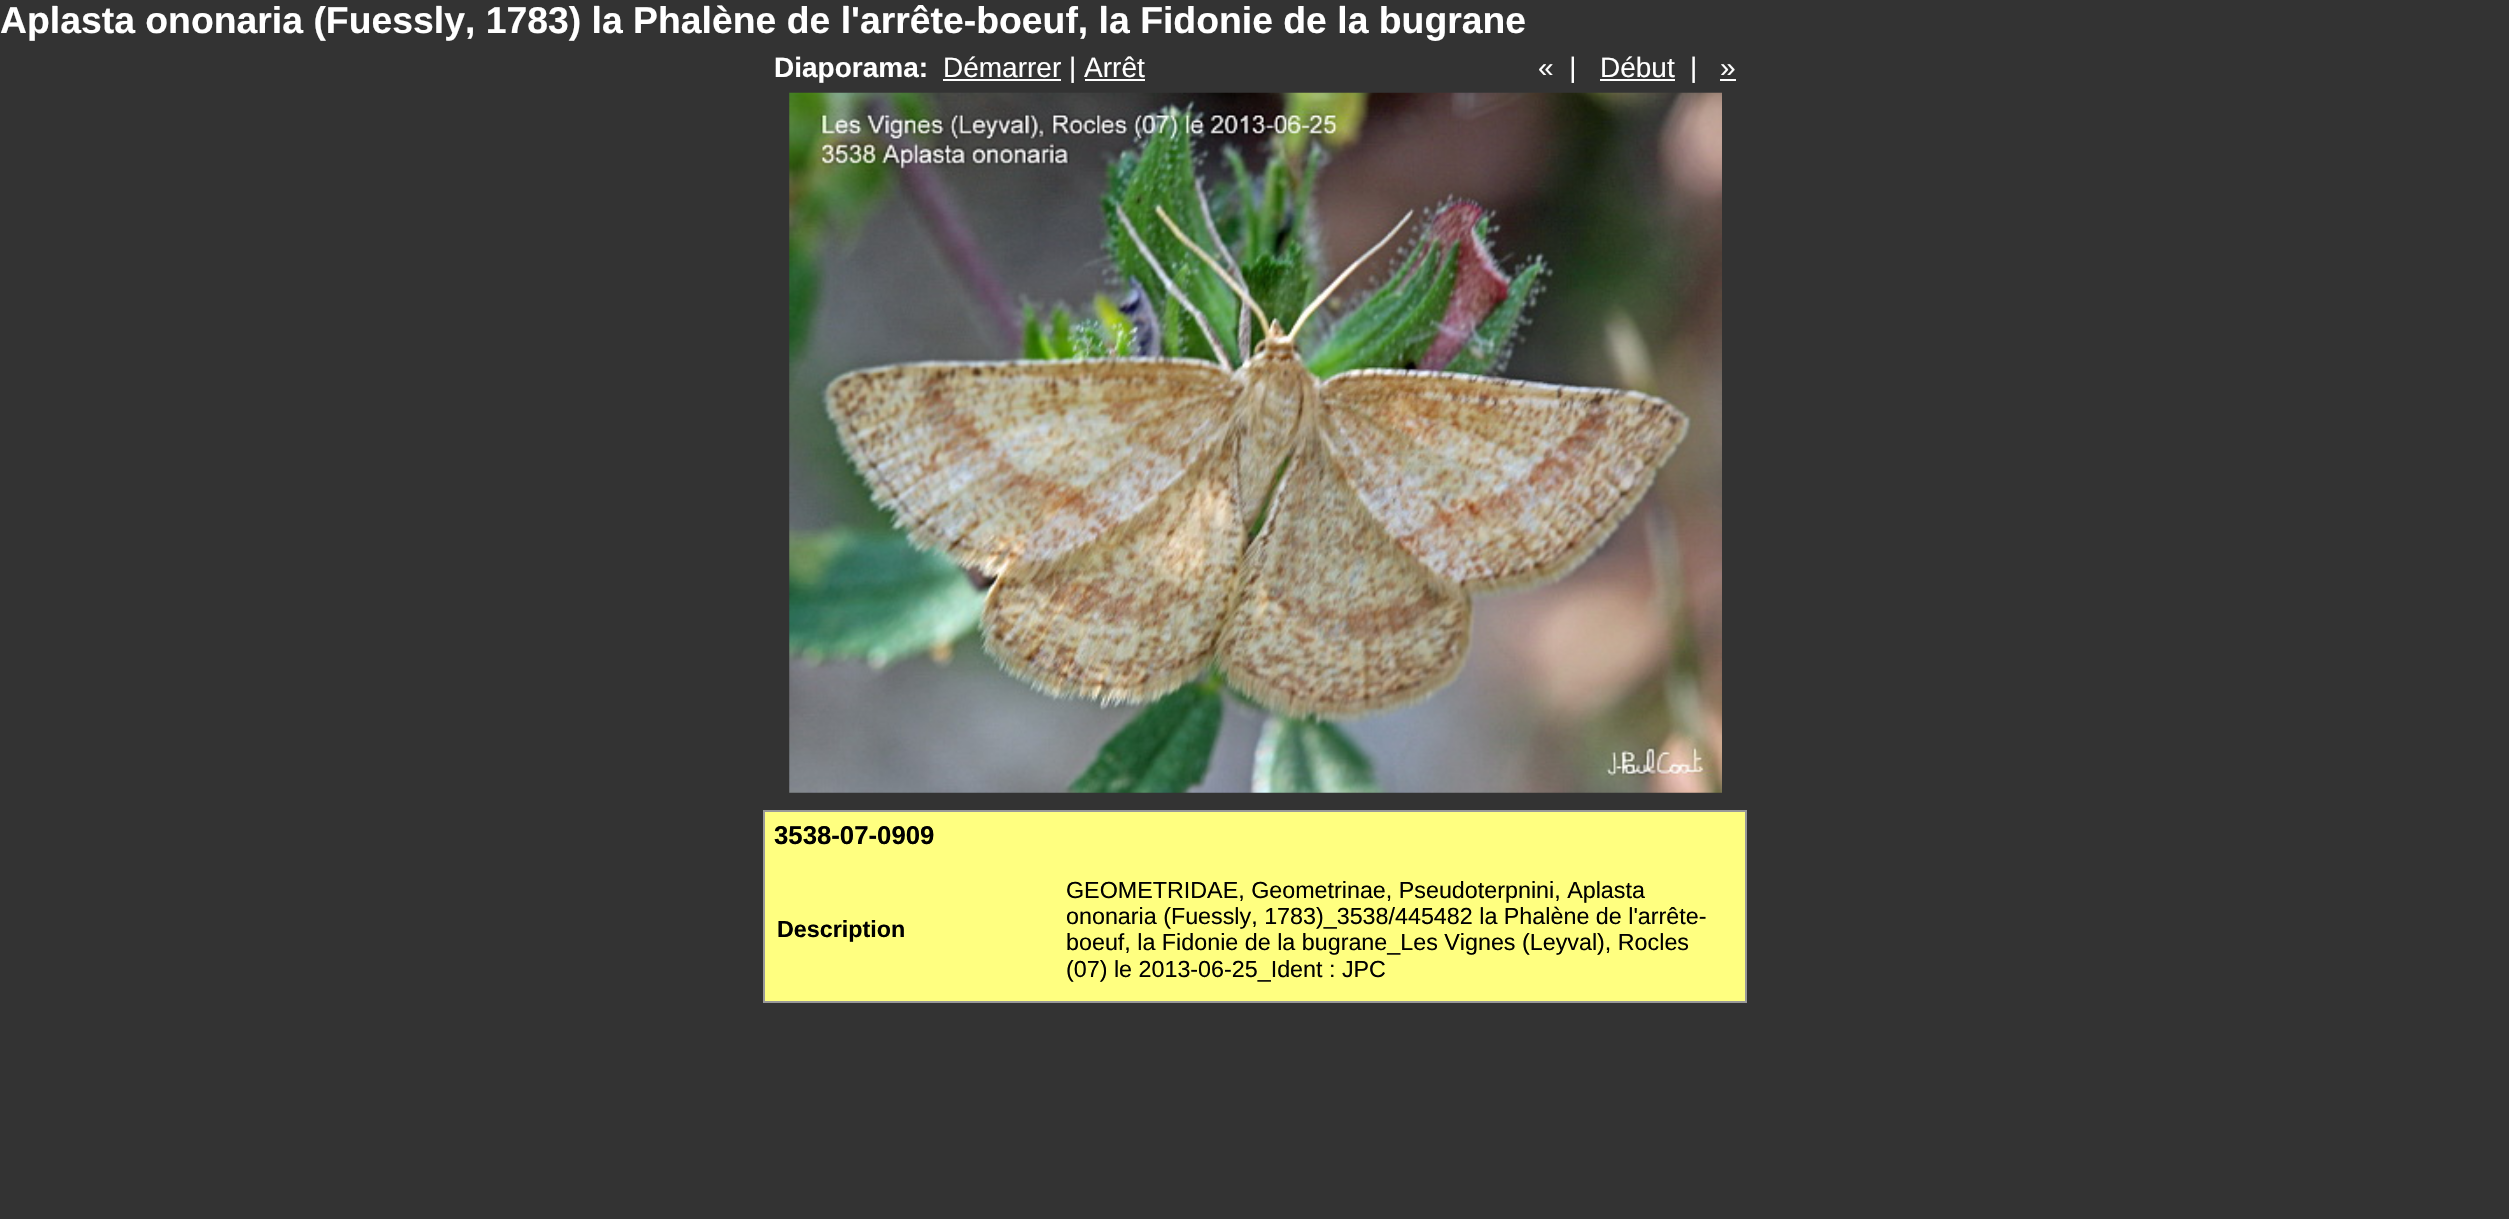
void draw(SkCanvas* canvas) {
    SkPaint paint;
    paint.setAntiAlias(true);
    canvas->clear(0xFF333333);
    SkFont font1(fontMgr->matchFamilyStyle("Liberation Sans", SkFontStyle::Bold()), 37.35f);
    font1.setSubpixel(true);
    paint.setColor(0xFFFFFFFF);
    canvas->drawString("Aplasta ononaria (Fuessly, 1783) la Phalène de l'arrête-boeuf, la Fidonie de la bugrane", 0, 33, font1, paint);
    SkFont font2(fontMgr->matchFamilyStyle("Liberation Sans", SkFontStyle::Bold()), 28);
    font2.setSubpixel(true);
    canvas->drawString("Diaporama:", 774, 77, font2, paint);
    canvas->drawRect(SkRect::MakeXYWH(943, 79, 118, 2), paint);
    SkFont font3(fontMgr->matchFamilyStyle("Liberation Sans", SkFontStyle::Normal()), 28);
    font3.setSubpixel(true);
    canvas->drawString("Démarrer | Arrêt", 943, 77, font3, paint);
    canvas->drawRect(SkRect::MakeXYWH(1085, 79, 60, 2), paint);
    canvas->drawString("«  |", 1538, 77, font3, paint);
    canvas->drawString("Début", 1600, 77, font3, paint);
    canvas->drawRect(SkRect::MakeXYWH(1600, 79, 75, 2), paint);
    canvas->drawString("|", 1690, 77, font3, paint);
    canvas->drawString("»", 1720, 77, font3, paint);
    canvas->drawRect(SkRect::MakeXYWH(1720, 79, 16, 2), paint);
    canvas->drawImageRect(SkImages::DeferredFromEncodedData(SkData::MakeFromFileName("img1.png")), SkRect::MakeXYWH(789, 92, 933, 701), SkSamplingOptions());
    paint.setColor(0xFFFFFF80);
    canvas->drawRect(SkRect::MakeXYWH(764, 811, 982, 191), paint);
    paint.setStyle(SkPaint::kStroke_Style);
    paint.setStrokeWidth(2);
    paint.setColor(0xFF999999);
    canvas->drawRect(SkRect::MakeXYWH(764, 811, 982, 191), paint);
    SkFont font4(fontMgr->matchFamilyStyle("Liberation Sans", SkFontStyle::Bold()), 25.75f);
    font4.setSubpixel(true);
    paint.setStyle(SkPaint::kFill_Style);
    paint.setColor(0xFF000000);
    canvas->drawString("3538-07-0909", 774, 844, font4, paint);
    SkFont font5(fontMgr->matchFamilyStyle("Liberation Sans", SkFontStyle::Bold()), 23.3f);
    font5.setSubpixel(true);
    canvas->drawString("Description", 777, 937, font5, paint);
    SkFont font6(fontMgr->matchFamilyStyle("Liberation Sans", SkFontStyle::Normal()), 23.3f);
    font6.setSubpixel(true);
    canvas->drawString("GEOMETRIDAE, Geometrinae, Pseudoterpnini, Aplasta", 1066, 898, font6, paint);
    canvas->drawString("ononaria (Fuessly, 1783)_3538/445482 la Phalène de l'arrête-", 1066, 924, font6, paint);
    canvas->drawString("boeuf, la Fidonie de la bugrane_Les Vignes (Leyval), Rocles", 1066, 950, font6, paint);
    canvas->drawString("(07) le 2013-06-25_Ident : JPC", 1066, 977, font6, paint);
}
